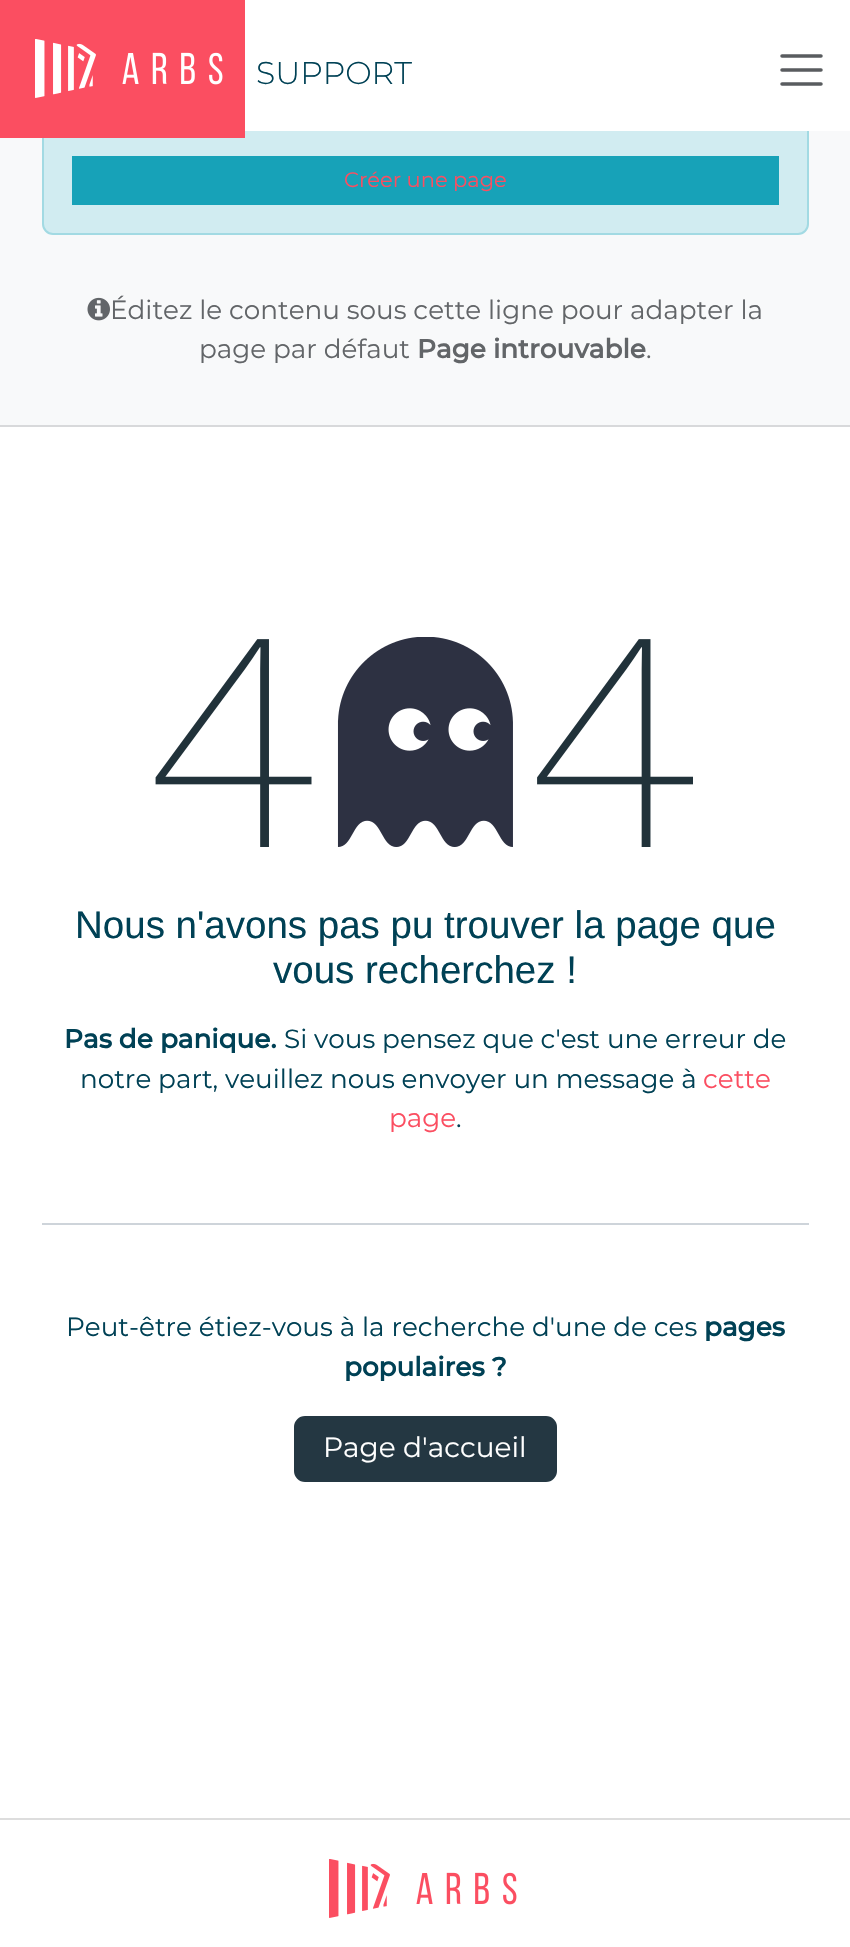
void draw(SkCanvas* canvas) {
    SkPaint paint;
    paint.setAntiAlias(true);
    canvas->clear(0xFFFFFFFF);
    paint.setColor(0xFFF8F9FA);
    canvas->drawRect(SkRect::MakeXYWH(0, 131, 850, 294), paint);
    paint.setColor(0xFFD1ECF1);
    canvas->drawRoundRect(SkRect::MakeXYWH(43, 20, 765, 214), 10, 10, paint);
    paint.setStyle(SkPaint::kStroke_Style);
    paint.setStrokeWidth(2);
    paint.setColor(0xFFA2DAE3);
    canvas->drawRoundRect(SkRect::MakeXYWH(43, 20, 765, 214), 10, 10, paint);
    paint.setStyle(SkPaint::kFill_Style);
    paint.setColor(0xFFFFFFFF);
    canvas->drawRect(SkRect::MakeXYWH(245, 19, 564, 112), paint);
    paint.setColor(0xFFFB4E61);
    canvas->drawRect(SkRect::MakeXYWH(0, 0, 245, 138), paint);
    canvas->drawImageRect(SkImages::DeferredFromEncodedData(SkData::MakeFromFileName("img1.png")), SkRect::MakeXYWH(35, 39, 188, 59), SkSamplingOptions());
    SkFont font1(fontMgr->matchFamilyStyle("Montserrat", SkFontStyle(300, SkFontStyle::kNormal_Width, SkFontStyle::kUpright_Slant)), 31.5f);
    font1.setSubpixel(true);
    paint.setColor(0xFF004155);
    canvas->drawString("SUPPORT", 256, 84, font1, paint);
    paint.setStyle(SkPaint::kStroke_Style);
    paint.setStrokeWidth(3.5f);
    paint.setStrokeCap(SkPaint::kRound_Cap);
    paint.setColor(0xFF595C5F);
    canvas->drawPath(SkPathBuilder().moveTo(782, 56).lineTo(821, 56).moveTo(782, 70).lineTo(821, 70).moveTo(782, 84).lineTo(821, 84).detach(), paint);
    paint.setStyle(SkPaint::kFill_Style);
    paint.setColor(0xFF17A2B8);
    canvas->drawRect(SkRect::MakeXYWH(72, 156, 707, 49), paint);
    SkFont font2(fontMgr->matchFamilyStyle("Montserrat", SkFontStyle::Normal()), 21);
    font2.setSubpixel(true);
    paint.setColor(0xFFFB4E61);
    canvas->drawString("Créer une page", 344, 187, font2, paint);
    canvas->drawImageRect(SkImages::DeferredFromEncodedData(SkData::MakeFromFileName("img2.png")), SkRect::MakeXYWH(87, 297, 23, 24), SkSamplingOptions());
    SkFont font3(fontMgr->matchFamilyStyle("Montserrat", SkFontStyle::Normal()), 26.25f);
    font3.setSubpixel(true);
    paint.setColor(0xFF626568);
    canvas->drawString("Éditez le contenu sous cette ligne pour adapter la", 110, 319, font3, paint);
    canvas->drawString("page par défaut", 199, 358, font3, paint);
    SkFont font4(fontMgr->matchFamilyStyle("Montserrat", SkFontStyle::Bold()), 26.25f);
    font4.setSubpixel(true);
    canvas->drawString("Page introuvable", 417, 358, font4, paint);
    canvas->drawString(".", 646, 358, font3, paint);
    paint.setColor(0xFFD8D9DB);
    canvas->drawRect(SkRect::MakeXYWH(0, 425, 850, 2), paint);
    canvas->drawImageRect(SkImages::DeferredFromEncodedData(SkData::MakeFromFileName("img3.png")), SkRect::MakeXYWH(155, 637, 538, 210), SkSamplingOptions());
    SkFont font5(fontMgr->matchFamilyStyle("Liberation Sans", SkFontStyle::Normal()), 38.5f);
    font5.setSubpixel(true);
    paint.setColor(0xFF004155);
    canvas->drawString("Nous n'avons pas pu trouver la page que", 75, 938, font5, paint);
    canvas->drawString("vous recherchez !", 273, 983, font5, paint);
    canvas->drawString("Pas de panique.", 64, 1048, font4, paint);
    canvas->drawString("Si vous pensez que c'est une erreur de", 284, 1048, font3, paint);
    canvas->drawString("notre part, veuillez nous envoyer un message à", 80, 1088, font3, paint);
    paint.setColor(0xFFFB4E61);
    canvas->drawString("cette", 703, 1088, font3, paint);
    canvas->drawString("page", 389, 1127, font3, paint);
    paint.setColor(0xFF004155);
    canvas->drawString(".", 456, 1127, font3, paint);
    paint.setColor(0xFFCED4DA);
    canvas->drawRect(SkRect::MakeXYWH(42, 1223, 767, 2), paint);
    paint.setColor(0xFF004155);
    canvas->drawString("Peut-être étiez-vous à la recherche d'une de ces", 66, 1336, font3, paint);
    canvas->drawString("pages", 704, 1336, font4, paint);
    canvas->drawString("populaires ?", 344, 1376, font4, paint);
    paint.setColor(0xFF243742);
    canvas->drawRoundRect(SkRect::MakeXYWH(295, 1417, 261, 64), 10, 10, paint);
    paint.setStyle(SkPaint::kStroke_Style);
    paint.setStrokeWidth(2);
    paint.setStrokeCap(SkPaint::kButt_Cap);
    canvas->drawRoundRect(SkRect::MakeXYWH(295, 1417, 261, 64), 10, 10, paint);
    SkFont font6(fontMgr->matchFamilyStyle("Montserrat", SkFontStyle::Normal()), 28);
    font6.setSubpixel(true);
    paint.setStyle(SkPaint::kFill_Style);
    paint.setColor(0xFFFFFFFF);
    canvas->drawString("Page d'accueil", 323, 1457, font6, paint);
    paint.setColor(0xFFDDDDDD);
    canvas->drawRect(SkRect::MakeXYWH(0, 1818, 850, 2), paint);
    canvas->drawImageRect(SkImages::DeferredFromEncodedData(SkData::MakeFromFileName("img4.png")), SkRect::MakeXYWH(329, 1859, 188, 59), SkSamplingOptions());
}
